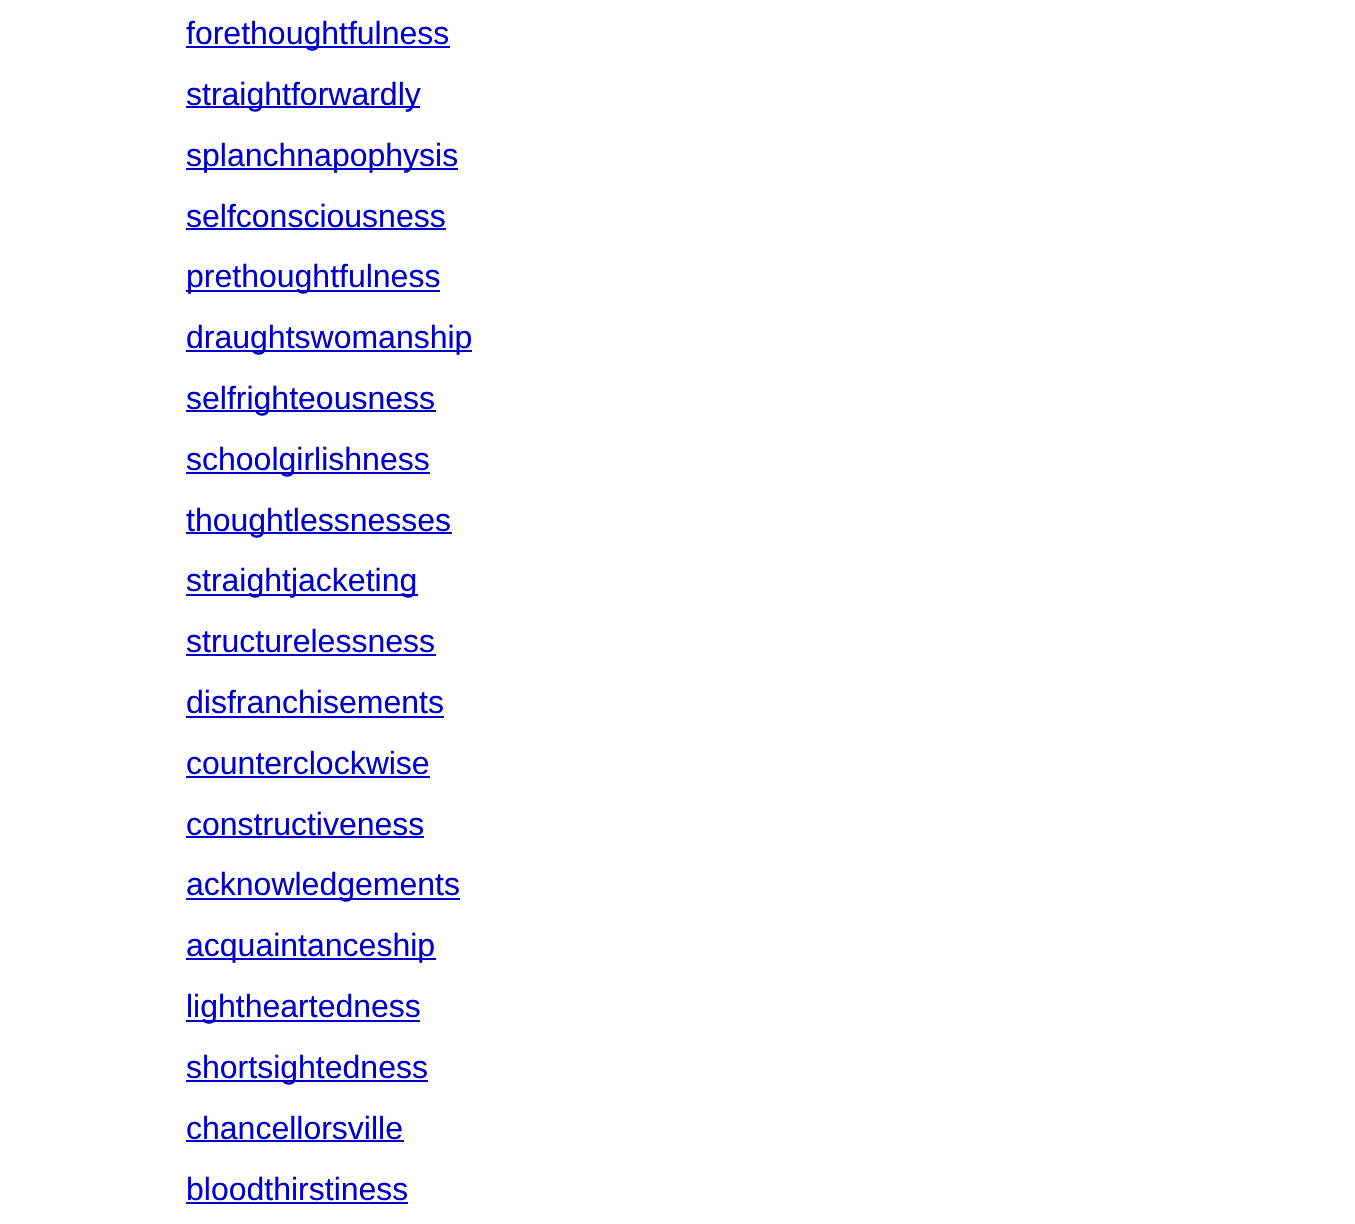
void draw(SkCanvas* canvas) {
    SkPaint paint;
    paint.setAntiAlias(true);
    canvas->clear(0xFFFFFFFF);
    paint.setColor(0xFF0000CD);
    canvas->drawRect(SkRect::MakeXYWH(186, 46, 264, 2), paint);
    SkFont font1(fontMgr->matchFamilyStyle("Liberation Sans", SkFontStyle::Normal()), 32);
    font1.setSubpixel(true);
    canvas->drawString("forethoughtfulness", 186, 44, font1, paint);
    canvas->drawRect(SkRect::MakeXYWH(186, 106, 234, 2), paint);
    canvas->drawString("straightforwardly", 186, 105, font1, paint);
    canvas->drawRect(SkRect::MakeXYWH(186, 168, 272, 2), paint);
    canvas->drawString("splanchnapophysis", 186, 166, font1, paint);
    canvas->drawString("selfconsciousness", 186, 227, font1, paint);
    canvas->drawRect(SkRect::MakeXYWH(186, 228, 260, 2), paint);
    canvas->drawRect(SkRect::MakeXYWH(186, 290, 254, 2), paint);
    canvas->drawString("prethoughtfulness", 186, 287, font1, paint);
    canvas->drawRect(SkRect::MakeXYWH(186, 350, 286, 2), paint);
    canvas->drawString("draughtswomanship", 186, 348, font1, paint);
    canvas->drawRect(SkRect::MakeXYWH(186, 410, 250, 2), paint);
    canvas->drawString("selfrighteousness", 186, 409, font1, paint);
    canvas->drawRect(SkRect::MakeXYWH(186, 472, 244, 2), paint);
    canvas->drawString("schoolgirlishness", 186, 470, font1, paint);
    canvas->drawRect(SkRect::MakeXYWH(186, 532, 266, 2), paint);
    canvas->drawString("thoughtlessnesses", 186, 531, font1, paint);
    canvas->drawRect(SkRect::MakeXYWH(186, 594, 232, 2), paint);
    canvas->drawString("straightjacketing", 186, 591, font1, paint);
    canvas->drawString("structurelessness", 186, 652, font1, paint);
    canvas->drawRect(SkRect::MakeXYWH(186, 654, 250, 2), paint);
    canvas->drawString("disfranchisements", 186, 713, font1, paint);
    canvas->drawRect(SkRect::MakeXYWH(186, 716, 258, 2), paint);
    canvas->drawString("counterclockwise", 186, 774, font1, paint);
    canvas->drawRect(SkRect::MakeXYWH(186, 776, 244, 2), paint);
    canvas->drawString("constructiveness", 186, 835, font1, paint);
    canvas->drawRect(SkRect::MakeXYWH(186, 836, 238, 2), paint);
    canvas->drawRect(SkRect::MakeXYWH(186, 898, 274, 2), paint);
    canvas->drawString("acknowledgements", 186, 895, font1, paint);
    canvas->drawRect(SkRect::MakeXYWH(186, 958, 250, 2), paint);
    canvas->drawString("acquaintanceship", 186, 956, font1, paint);
    canvas->drawRect(SkRect::MakeXYWH(186, 1020, 234, 2), paint);
    canvas->drawString("lightheartedness", 186, 1017, font1, paint);
    canvas->drawRect(SkRect::MakeXYWH(186, 1080, 242, 2), paint);
    canvas->drawString("shortsightedness", 186, 1078, font1, paint);
    canvas->drawString("chancellorsville", 186, 1139, font1, paint);
    canvas->drawRect(SkRect::MakeXYWH(186, 1140, 218, 2), paint);
    canvas->drawString("bloodthirstiness", 186, 1200, font1, paint);
    canvas->drawRect(SkRect::MakeXYWH(186, 1202, 222, 2), paint);
}
